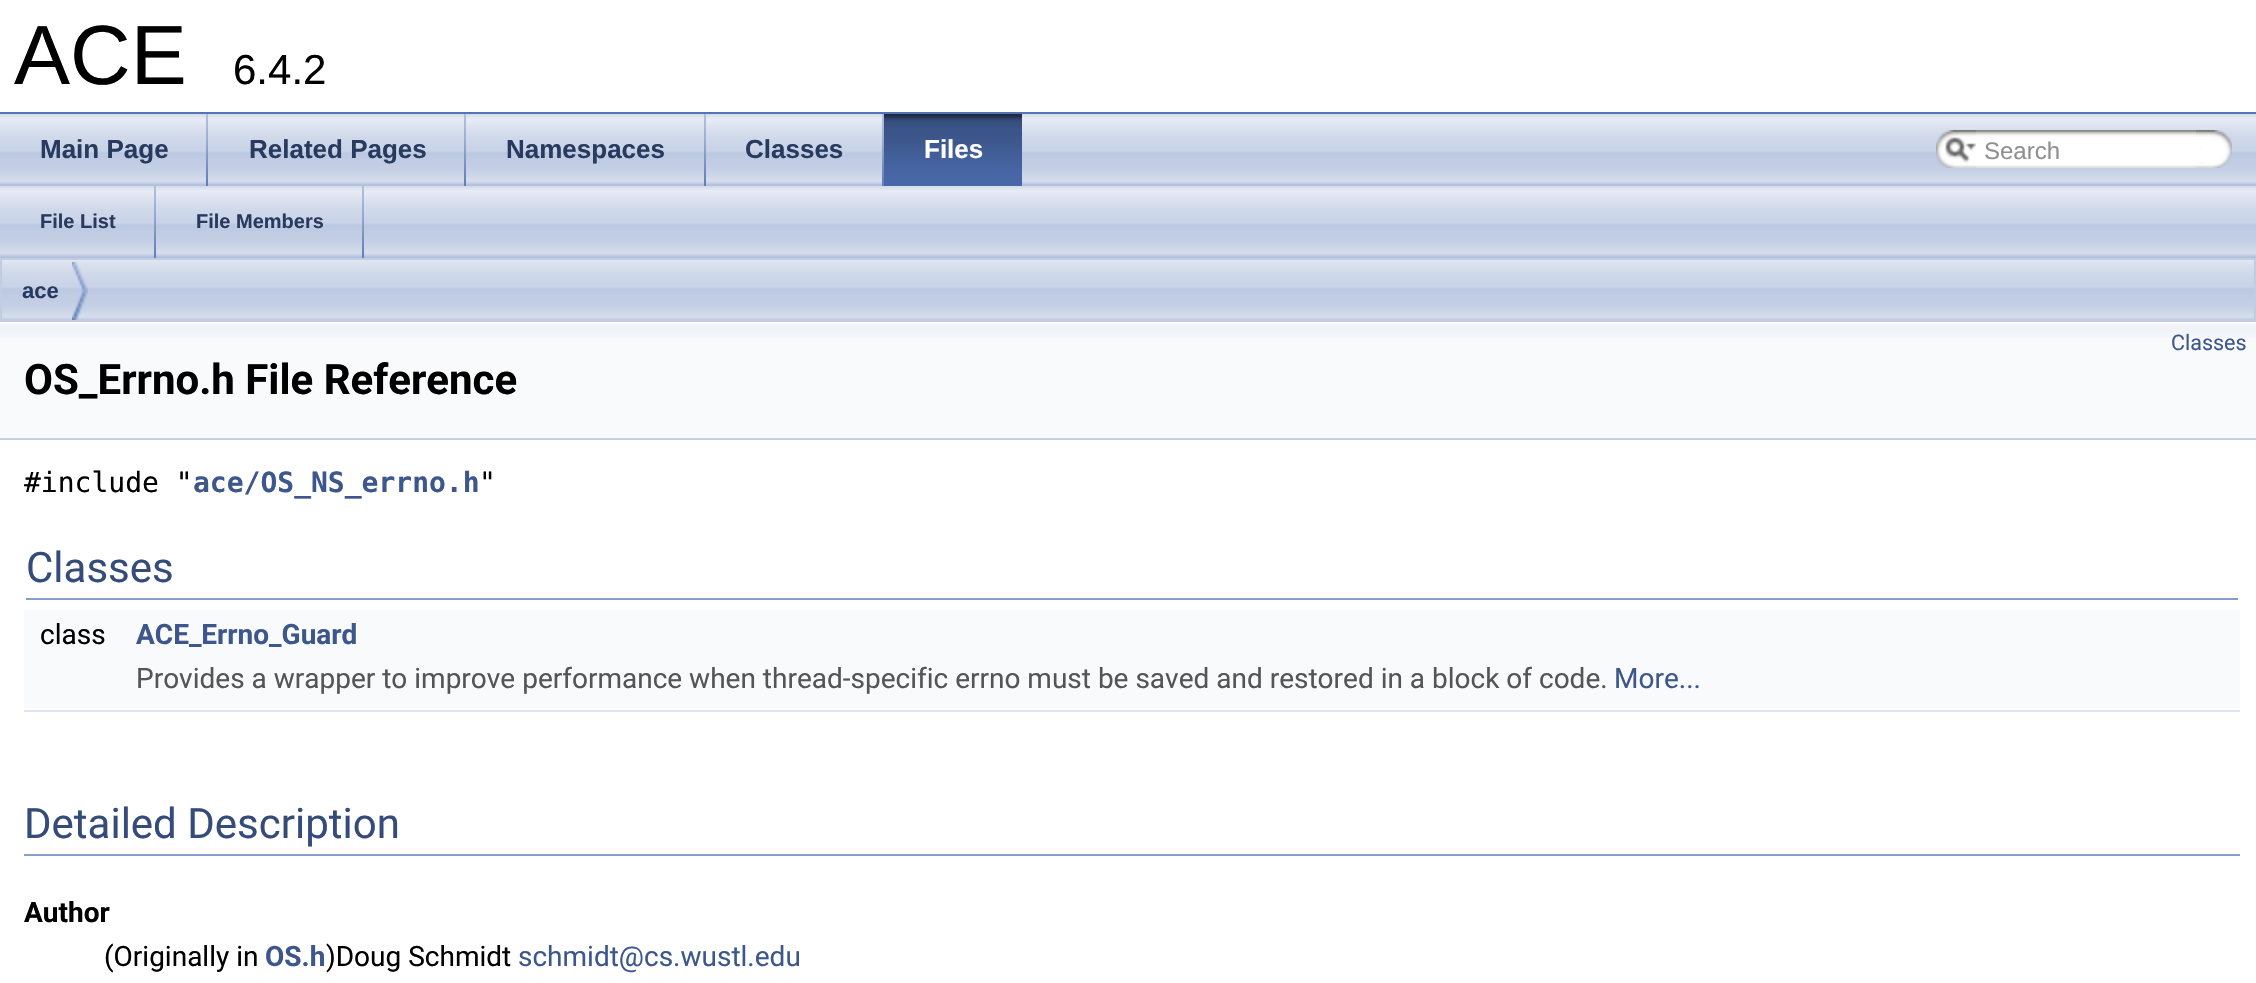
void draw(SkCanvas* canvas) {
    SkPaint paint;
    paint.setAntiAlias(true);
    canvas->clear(0xFFFFFFFF);
    paint.setColor(0xFF5373B4);
    canvas->drawRect(SkRect::MakeXYWH(0, 112, 2256, 2), paint);
    SkFont font1(fontMgr->matchFamilyStyle("Liberation Sans", SkFontStyle::Normal()), 84);
    font1.setSubpixel(true);
    paint.setColor(0xFF000000);
    canvas->drawString("ACE", 14, 84, font1, paint);
    SkFont font2(fontMgr->matchFamilyStyle("Liberation Sans", SkFontStyle::Normal()), 42);
    font2.setSubpixel(true);
    canvas->drawString("6.4.2", 233, 84, font2, paint);
    canvas->drawImageRect(SkImages::DeferredFromEncodedData(SkData::MakeFromFileName("img1.png")), SkRect::MakeXYWH(0, 114, 2256, 72), SkSamplingOptions());
    canvas->drawImageRect(SkImages::DeferredFromEncodedData(SkData::MakeFromFileName("img2.png")), SkRect::MakeXYWH(206, 114, 2, 72), SkSamplingOptions());
    SkFont font3(fontMgr->matchFamilyStyle("Liberation Sans", SkFontStyle::Bold()), 26);
    font3.setSubpixel(true);
    paint.setColor(0xFF283A5D);
    canvas->drawString("Main Page", 40, 158, font3, paint);
    canvas->drawImageRect(SkImages::DeferredFromEncodedData(SkData::MakeFromFileName("img2.png")), SkRect::MakeXYWH(464, 114, 2, 72), SkSamplingOptions());
    canvas->drawString("Related Pages", 249, 158, font3, paint);
    canvas->drawImageRect(SkImages::DeferredFromEncodedData(SkData::MakeFromFileName("img2.png")), SkRect::MakeXYWH(704, 114, 2, 72), SkSamplingOptions());
    canvas->drawString("Namespaces", 506, 158, font3, paint);
    canvas->drawImageRect(SkImages::DeferredFromEncodedData(SkData::MakeFromFileName("img2.png")), SkRect::MakeXYWH(882, 114, 2, 72), SkSamplingOptions());
    canvas->drawString("Classes", 745, 158, font3, paint);
    canvas->drawImageRect(SkImages::DeferredFromEncodedData(SkData::MakeFromFileName("img3.png")), SkRect::MakeXYWH(884, 114, 138, 72), SkSamplingOptions());
    paint.setColor(0xFFFFFFFF);
    canvas->drawString("Files", 924, 158, font3, paint);
    canvas->drawImageRect(SkImages::DeferredFromEncodedData(SkData::MakeFromFileName("img4.png")), SkRect::MakeXYWH(1936, 130, 40, 38), SkSamplingOptions());
    canvas->drawImageRect(SkImages::DeferredFromEncodedData(SkData::MakeFromFileName("img5.png")), SkRect::MakeXYWH(1945, 137, 31, 26), SkSamplingOptions());
    canvas->drawImageRect(SkImages::DeferredFromEncodedData(SkData::MakeFromFileName("img6.png")), SkRect::MakeXYWH(1976, 130, 220, 38), SkSamplingOptions());
    SkFont font4(fontMgr->matchFamilyStyle("Liberation Sans", SkFontStyle::Normal()), 24);
    font4.setSubpixel(true);
    paint.setColor(0xFF909090);
    canvas->drawString("Search", 1984, 159, font4, paint);
    canvas->drawImageRect(SkImages::DeferredFromEncodedData(SkData::MakeFromFileName("img7.png")), SkRect::MakeXYWH(2196, 130, 36, 38), SkSamplingOptions());
    canvas->drawImageRect(SkImages::DeferredFromEncodedData(SkData::MakeFromFileName("img1.png")), SkRect::MakeXYWH(0, 186, 2256, 72), SkSamplingOptions());
    canvas->drawImageRect(SkImages::DeferredFromEncodedData(SkData::MakeFromFileName("img2.png")), SkRect::MakeXYWH(154, 186, 2, 72), SkSamplingOptions());
    SkFont font5(fontMgr->matchFamilyStyle("Liberation Sans", SkFontStyle::Bold()), 20);
    font5.setSubpixel(true);
    paint.setColor(0xFF283A5D);
    canvas->drawString("File List", 40, 228, font5, paint);
    canvas->drawImageRect(SkImages::DeferredFromEncodedData(SkData::MakeFromFileName("img2.png")), SkRect::MakeXYWH(362, 186, 2, 72), SkSamplingOptions());
    canvas->drawString("File Members", 196, 228, font5, paint);
    canvas->drawImageRect(SkImages::DeferredFromEncodedData(SkData::MakeFromFileName("img8.png")), SkRect::MakeXYWH(2, 260, 2252, 60), SkSamplingOptions());
    paint.setStyle(SkPaint::kStroke_Style);
    paint.setStrokeWidth(2);
    paint.setColor(0xFFC2CDE4);
    canvas->drawRect(SkRect::MakeXYWH(1, 259, 2254, 62), paint);
    canvas->drawImageRect(SkImages::DeferredFromEncodedData(SkData::MakeFromFileName("img9.png")), SkRect::MakeXYWH(72, 262, 16, 58), SkSamplingOptions());
    SkFont font6(fontMgr->matchFamilyStyle("Liberation Sans", SkFontStyle::Bold()), 22);
    font6.setSubpixel(true);
    paint.setStyle(SkPaint::kFill_Style);
    paint.setColor(0xFF283A5D);
    canvas->drawString("ace", 22, 298, font6, paint);
    paint.setColor(0xFFF9FAFC);
    canvas->drawRect(SkRect::MakeXYWH(0, 338, 2256, 100), paint);
    canvas->drawImageRect(SkImages::DeferredFromEncodedData(SkData::MakeFromFileName("img10.png")), SkRect::MakeXYWH(0, 322, 2256, 16), SkSamplingOptions());
    paint.setColor(0xFFC4CFE5);
    canvas->drawRect(SkRect::MakeXYWH(0, 438, 2256, 2), paint);
    SkFont font7(fontMgr->matchFamilyStyle("Roboto", SkFontStyle::Normal()), 21.5f);
    font7.setSubpixel(true);
    paint.setColor(0xFF3D578C);
    canvas->drawString("Classes", 2171, 350, font7, paint);
    SkFont font8(fontMgr->matchFamilyStyle("Roboto", SkFontStyle::Bold()), 42);
    font8.setSubpixel(true);
    paint.setColor(0xFF000000);
    canvas->drawString("OS_Errno.h File Reference", 24, 394, font8, paint);
    SkFont font9(fontMgr->matchFamilyStyle("DejaVu Sans Mono", SkFontStyle::Normal()), 28);
    font9.setSubpixel(true);
    canvas->drawString("#include \"", 24, 492, font9, paint);
    SkFont font10(fontMgr->matchFamilyStyle("DejaVu Sans Mono", SkFontStyle::Bold()), 28);
    font10.setSubpixel(true);
    paint.setColor(0xFF3D578C);
    canvas->drawString("ace/OS_NS_errno.h", 193, 492, font10, paint);
    paint.setColor(0xFF000000);
    canvas->drawString("\"", 479, 492, font9, paint);
    paint.setColor(0xFF879ECB);
    canvas->drawRect(SkRect::MakeXYWH(26, 598, 2212, 2), paint);
    SkFont font11(fontMgr->matchFamilyStyle("Roboto", SkFontStyle::Normal()), 42);
    font11.setSubpixel(true);
    paint.setColor(0xFF354C7B);
    canvas->drawString("Classes", 26, 582, font11, paint);
    paint.setColor(0xFFF9FAFC);
    canvas->drawRect(SkRect::MakeXYWH(24, 610, 2216, 46), paint);
    SkFont font12(fontMgr->matchFamilyStyle("Roboto", SkFontStyle::Normal()), 28);
    font12.setSubpixel(true);
    paint.setColor(0xFF000000);
    canvas->drawString("class", 40, 644, font12, paint);
    SkFont font13(fontMgr->matchFamilyStyle("Roboto", SkFontStyle::Bold()), 28);
    font13.setSubpixel(true);
    paint.setColor(0xFF3D578C);
    canvas->drawString("ACE_Errno_Guard", 136, 644, font13, paint);
    paint.setColor(0xFFF9FAFC);
    canvas->drawRect(SkRect::MakeXYWH(24, 656, 2216, 52), paint);
    paint.setColor(0xFF555555);
    canvas->drawString("Provides a wrapper to improve performance when thread-specific errno must be saved and restored in a block of code.", 136, 688, font12, paint);
    paint.setColor(0xFF3D578C);
    canvas->drawString("More...", 1614, 688, font12, paint);
    paint.setColor(0xFFDEE4F0);
    canvas->drawRect(SkRect::MakeXYWH(24, 710, 2216, 2), paint);
    paint.setColor(0xFF879ECB);
    canvas->drawRect(SkRect::MakeXYWH(24, 854, 2216, 2), paint);
    paint.setColor(0xFF354C7B);
    canvas->drawString("Detailed Description", 24, 838, font11, paint);
    paint.setColor(0xFF000000);
    canvas->drawString("Author", 24, 922, font13, paint);
    canvas->drawString("(Originally in", 104, 966, font12, paint);
    paint.setColor(0xFF3D578C);
    canvas->drawString("OS.h", 265, 966, font13, paint);
    paint.setColor(0xFF000000);
    canvas->drawString(")Doug Schmidt", 326, 966, font12, paint);
    paint.setColor(0xFF3D578C);
    canvas->drawString("schmidt@cs.wustl.edu", 518, 966, font12, paint);
}
